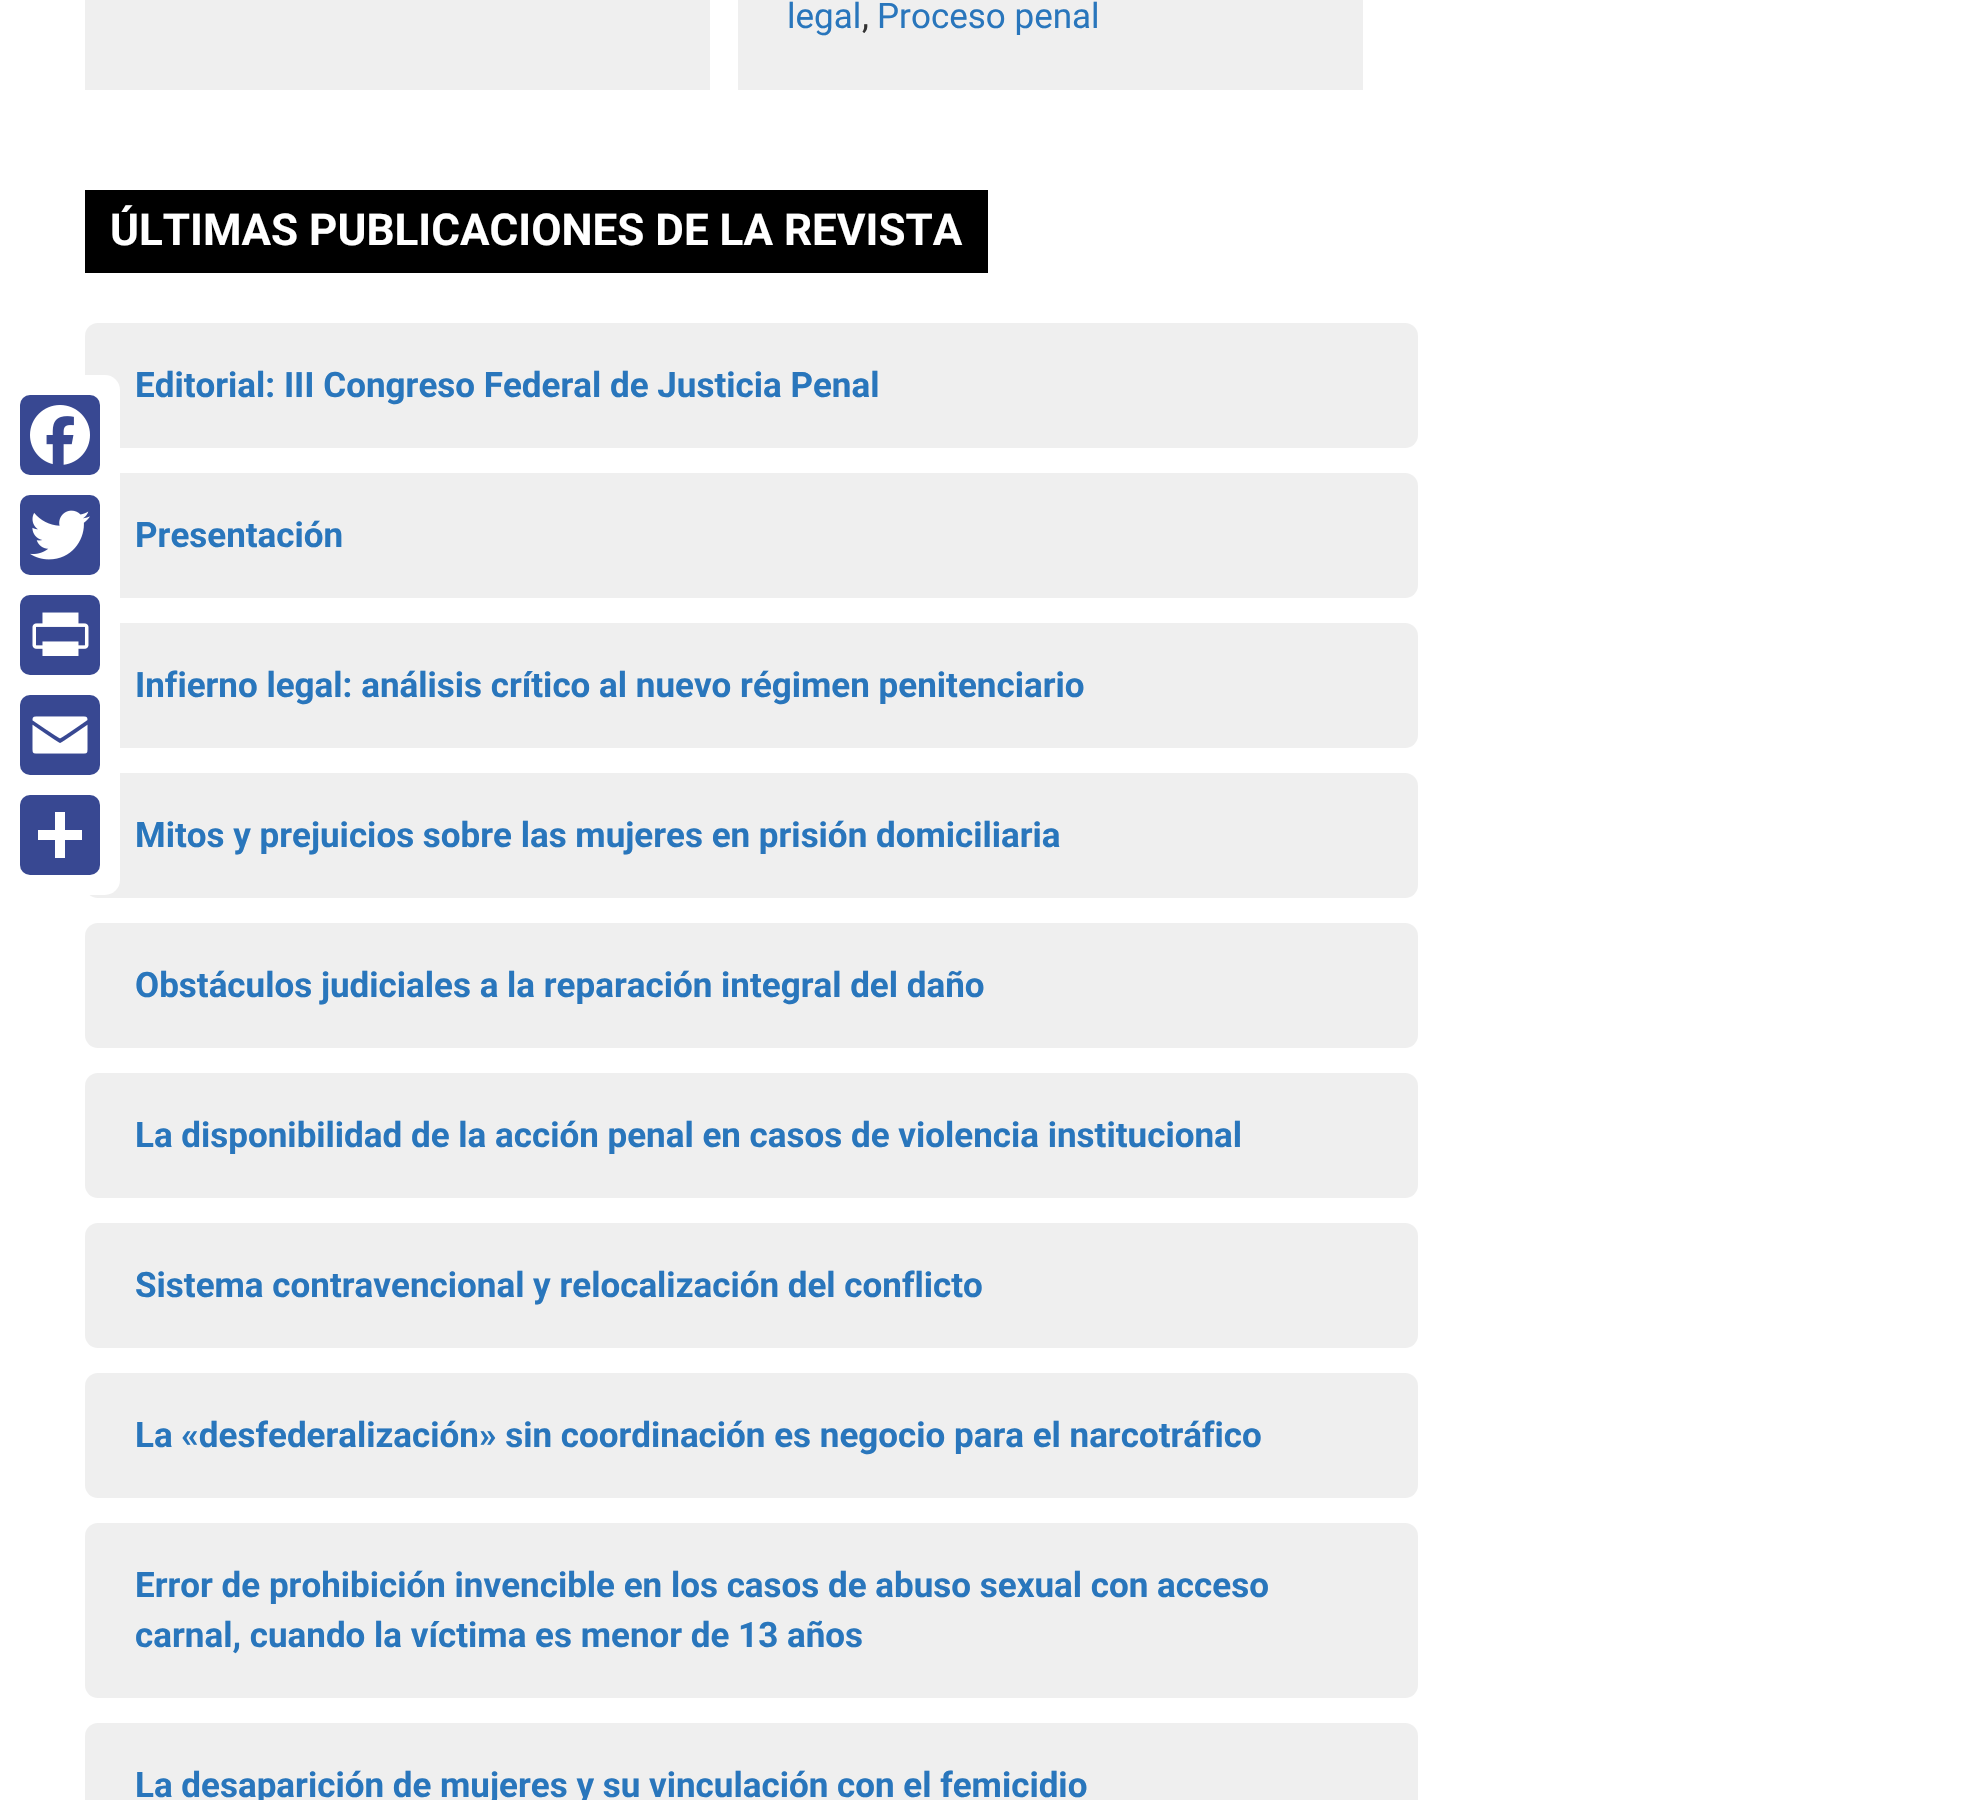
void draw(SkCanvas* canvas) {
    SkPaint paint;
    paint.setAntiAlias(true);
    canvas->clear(0xFFFFFFFF);
    paint.setColor(0xFFEFEFEF);
    canvas->drawRect(SkRect::MakeXYWH(85, 0, 625, 90), paint);
    canvas->drawRect(SkRect::MakeXYWH(738, 0, 625, 90), paint);
    SkFont font1(fontMgr->matchFamilyStyle("Roboto", SkFontStyle::Normal()), 35);
    font1.setSubpixel(true);
    paint.setColor(0xFF2976BC);
    canvas->drawString("legal", 787, 28, font1, paint);
    paint.setColor(0xFF333333);
    canvas->drawString(",", 862, 28, font1, paint);
    paint.setColor(0xFF2976BC);
    canvas->drawString("Proceso penal", 877, 28, font1, paint);
    paint.setColor(0xFFEFEFEF);
    canvas->drawRoundRect(SkRect::MakeXYWH(85, 323, 1333, 125), 13, 13, paint);
    canvas->drawRoundRect(SkRect::MakeXYWH(85, 473, 1333, 125), 13, 13, paint);
    canvas->drawRoundRect(SkRect::MakeXYWH(85, 623, 1333, 125), 13, 13, paint);
    canvas->drawRoundRect(SkRect::MakeXYWH(85, 773, 1333, 125), 13, 13, paint);
    paint.setColor(0xFFFFFFFF);
    canvas->drawRoundRect(SkRect::MakeXYWH(0, 375, 120, 520), 15, 15, paint);
    paint.setColor(0xFF384892);
    canvas->drawRoundRect(SkRect::MakeXYWH(20, 395, 80, 80), 10, 10, paint);
    canvas->drawImageRect(SkImages::DeferredFromEncodedData(SkData::MakeFromFileName("img1.png")), SkRect::MakeXYWH(30, 405, 60, 60), SkSamplingOptions());
    canvas->drawRoundRect(SkRect::MakeXYWH(20, 495, 80, 80), 10, 10, paint);
    canvas->drawImageRect(SkImages::DeferredFromEncodedData(SkData::MakeFromFileName("img2.png")), SkRect::MakeXYWH(30, 510, 60, 50), SkSamplingOptions());
    canvas->drawRoundRect(SkRect::MakeXYWH(20, 595, 80, 80), 10, 10, paint);
    canvas->drawImageRect(SkImages::DeferredFromEncodedData(SkData::MakeFromFileName("img3.png")), SkRect::MakeXYWH(32, 612, 57, 44), SkSamplingOptions());
    canvas->drawRoundRect(SkRect::MakeXYWH(20, 695, 80, 80), 10, 10, paint);
    canvas->drawImageRect(SkImages::DeferredFromEncodedData(SkData::MakeFromFileName("img4.png")), SkRect::MakeXYWH(32, 716, 56, 38), SkSamplingOptions());
    canvas->drawRoundRect(SkRect::MakeXYWH(20, 795, 80, 80), 10, 10, paint);
    paint.setColor(0xFFFFFFFF);
    canvas->drawRect(SkRect::MakeXYWH(55, 812, 10, 46), paint);
    canvas->drawRect(SkRect::MakeXYWH(38, 830, 44, 10), paint);
    paint.setColor(0xFF000000);
    canvas->drawRect(SkRect::MakeXYWH(85, 190, 903, 83), paint);
    SkFont font2(fontMgr->matchFamilyStyle("Roboto", SkFontStyle::Bold()), 44);
    font2.setSubpixel(true);
    paint.setColor(0xFFFFFFFF);
    canvas->drawString("ÚLTIMAS PUBLICACIONES DE LA REVISTA", 110, 245, font2, paint);
    SkFont font3(fontMgr->matchFamilyStyle("Roboto", SkFontStyle::Bold()), 35);
    font3.setSubpixel(true);
    paint.setColor(0xFF2976BC);
    canvas->drawString("Editorial: III Congreso Federal de Justicia Penal", 135, 397, font3, paint);
    canvas->drawString("Presentación", 135, 547, font3, paint);
    canvas->drawString("Infierno legal: análisis crítico al nuevo régimen penitenciario", 135, 697, font3, paint);
    canvas->drawString("Mitos y prejuicios sobre las mujeres en prisión domiciliaria", 135, 847, font3, paint);
    paint.setColor(0xFFEFEFEF);
    canvas->drawRoundRect(SkRect::MakeXYWH(85, 923, 1333, 125), 13, 13, paint);
    paint.setColor(0xFF2976BC);
    canvas->drawString("Obstáculos judiciales a la reparación integral del daño", 135, 997, font3, paint);
    paint.setColor(0xFFEFEFEF);
    canvas->drawRoundRect(SkRect::MakeXYWH(85, 1073, 1333, 125), 13, 13, paint);
    paint.setColor(0xFF2976BC);
    canvas->drawString("La disponibilidad de la acción penal en casos de violencia institucional", 135, 1147, font3, paint);
    paint.setColor(0xFFEFEFEF);
    canvas->drawRoundRect(SkRect::MakeXYWH(85, 1223, 1333, 125), 13, 13, paint);
    paint.setColor(0xFF2976BC);
    canvas->drawString("Sistema contravencional y relocalización del conflicto", 135, 1297, font3, paint);
    paint.setColor(0xFFEFEFEF);
    canvas->drawRoundRect(SkRect::MakeXYWH(85, 1373, 1333, 125), 13, 13, paint);
    paint.setColor(0xFF2976BC);
    canvas->drawString("La «desfederalización» sin coordinación es negocio para el narcotráfico", 135, 1447, font3, paint);
    paint.setColor(0xFFEFEFEF);
    canvas->drawRoundRect(SkRect::MakeXYWH(85, 1523, 1333, 175), 13, 13, paint);
    paint.setColor(0xFF2976BC);
    canvas->drawString("Error de prohibición invencible en los casos de abuso sexual con acceso", 135, 1597, font3, paint);
    canvas->drawString("carnal, cuando la víctima es menor de 13 años", 135, 1647, font3, paint);
    paint.setColor(0xFFEFEFEF);
    canvas->drawRoundRect(SkRect::MakeXYWH(85, 1723, 1333, 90), 13, 13, paint);
    paint.setColor(0xFF2976BC);
    canvas->drawString("La desaparición de mujeres y su vinculación con el femicidio", 135, 1797, font3, paint);
}
